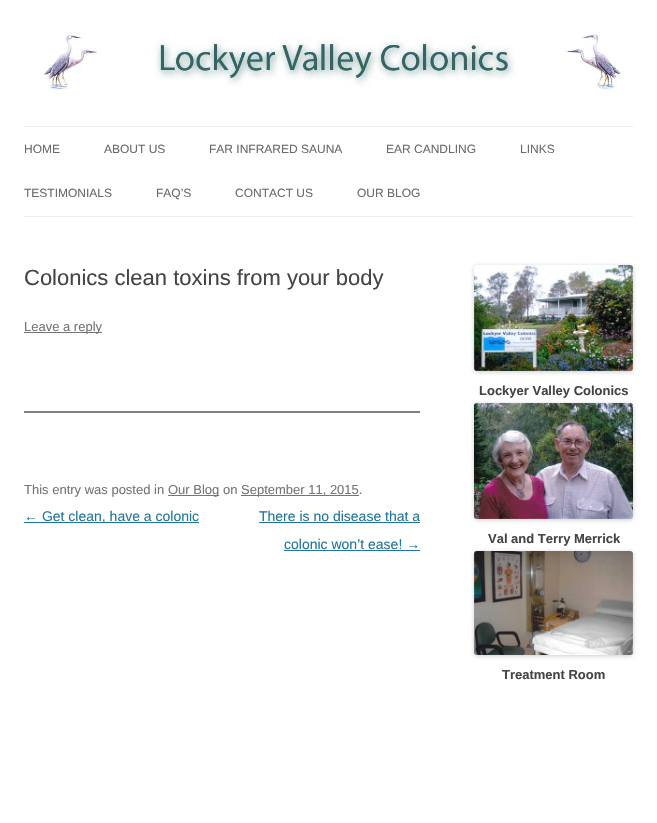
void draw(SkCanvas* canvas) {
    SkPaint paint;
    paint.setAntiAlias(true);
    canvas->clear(0xFFFFFFFF);
    canvas->drawImageRect(SkImages::DeferredFromEncodedData(SkData::MakeFromFileName("img1.png")), SkRect::MakeXYWH(41, 32, 580, 58), SkSamplingOptions());
    paint.setColor(0xFFEDEDED);
    canvas->drawRect(SkRect::MakeXYWH(24, 126, 609, 1), paint);
    canvas->drawRect(SkRect::MakeXYWH(24, 216, 609, 1), paint);
    SkFont font1(fontMgr->matchFamilyStyle("Liberation Sans", SkFontStyle::Normal()), 12);
    font1.setSubpixel(true);
    paint.setColor(0xFF6A6A6A);
    canvas->drawString("HOME", 24, 153, font1, paint);
    canvas->drawString("ABOUT US", 104, 153, font1, paint);
    canvas->drawString("FAR INFRARED SAUNA", 209, 153, font1, paint);
    canvas->drawString("EAR CANDLING", 386, 153, font1, paint);
    canvas->drawString("LINKS", 520, 153, font1, paint);
    canvas->drawString("TESTIMONIALS", 24, 197, font1, paint);
    canvas->drawString("FAQ’S", 156, 197, font1, paint);
    canvas->drawString("CONTACT US", 235, 197, font1, paint);
    canvas->drawString("OUR BLOG", 357, 197, font1, paint);
    SkFont font2(fontMgr->matchFamilyStyle("Liberation Sans", SkFontStyle::Normal()), 22);
    font2.setSubpixel(true);
    paint.setColor(0xFF444444);
    canvas->drawString("Colonics clean toxins from your body", 24, 285, font2, paint);
    paint.setColor(0xFF757575);
    canvas->drawRect(SkRect::MakeXYWH(24, 332, 78, 1), paint);
    SkFont font3(fontMgr->matchFamilyStyle("Liberation Sans", SkFontStyle::Normal()), 13);
    font3.setSubpixel(true);
    canvas->drawString("Leave a reply", 24, 331, font3, paint);
    paint.setColor(0xFF808080);
    canvas->drawRect(SkRect::MakeXYWH(24, 411, 396, 2), paint);
    paint.setColor(0xFF757575);
    canvas->drawString("This entry was posted in", 24, 494, font3, paint);
    canvas->drawRect(SkRect::MakeXYWH(168, 495, 51, 1), paint);
    canvas->drawString("Our Blog on", 168, 494, font3, paint);
    canvas->drawRect(SkRect::MakeXYWH(241, 495, 118, 1), paint);
    canvas->drawString("September 11, 2015.", 241, 494, font3, paint);
    paint.setColor(0xFF21759B);
    canvas->drawRect(SkRect::MakeXYWH(24, 522, 175, 1), paint);
    SkFont font4(fontMgr->matchFamilyStyle("Liberation Sans", SkFontStyle::Normal()), 14);
    font4.setSubpixel(true);
    canvas->drawString("← Get clean, have a colonic", 24, 521, font4, paint);
    canvas->drawString("There is no disease that a", 259, 521, font4, paint);
    canvas->drawRect(SkRect::MakeXYWH(259, 522, 161, 1), paint);
    canvas->drawString("colonic won’t ease! →", 284, 549, font4, paint);
    canvas->drawRect(SkRect::MakeXYWH(284, 550, 136, 1), paint);
    paint.setColor(0x33000000);
    paint.setMaskFilter(SkMaskFilter::MakeBlur(kNormal_SkBlurStyle, 2));
    canvas->drawRoundRect(SkRect::MakeXYWH(474, 266, 159, 106), 3, 3, paint);
    paint.setMaskFilter(nullptr);
    canvas->drawImageRect(SkImages::DeferredFromEncodedData(SkData::MakeFromFileName("img2.png")), SkRect::MakeXYWH(474, 265, 159, 106), SkSamplingOptions());
    SkFont font5(fontMgr->matchFamilyStyle("Liberation Sans", SkFontStyle::Bold()), 13);
    font5.setSubpixel(true);
    paint.setColor(0xFF444444);
    canvas->drawString("Lockyer Valley Colonics", 479, 395, font5, paint);
    paint.setColor(0x33000000);
    paint.setMaskFilter(SkMaskFilter::MakeBlur(kNormal_SkBlurStyle, 2));
    canvas->drawRoundRect(SkRect::MakeXYWH(474, 404, 159, 116), 3, 3, paint);
    paint.setMaskFilter(nullptr);
    canvas->drawImageRect(SkImages::DeferredFromEncodedData(SkData::MakeFromFileName("img3.png")), SkRect::MakeXYWH(474, 403, 159, 116), SkSamplingOptions());
    paint.setColor(0xFF444444);
    canvas->drawString("Val and Terry Merrick", 488, 543, font5, paint);
    paint.setColor(0x33000000);
    paint.setMaskFilter(SkMaskFilter::MakeBlur(kNormal_SkBlurStyle, 2));
    canvas->drawRoundRect(SkRect::MakeXYWH(474, 552, 159, 104), 3, 3, paint);
    paint.setMaskFilter(nullptr);
    canvas->drawImageRect(SkImages::DeferredFromEncodedData(SkData::MakeFromFileName("img4.png")), SkRect::MakeXYWH(474, 551, 159, 104), SkSamplingOptions());
    paint.setColor(0xFF444444);
    canvas->drawString("Treatment Room", 502, 679, font5, paint);
}
